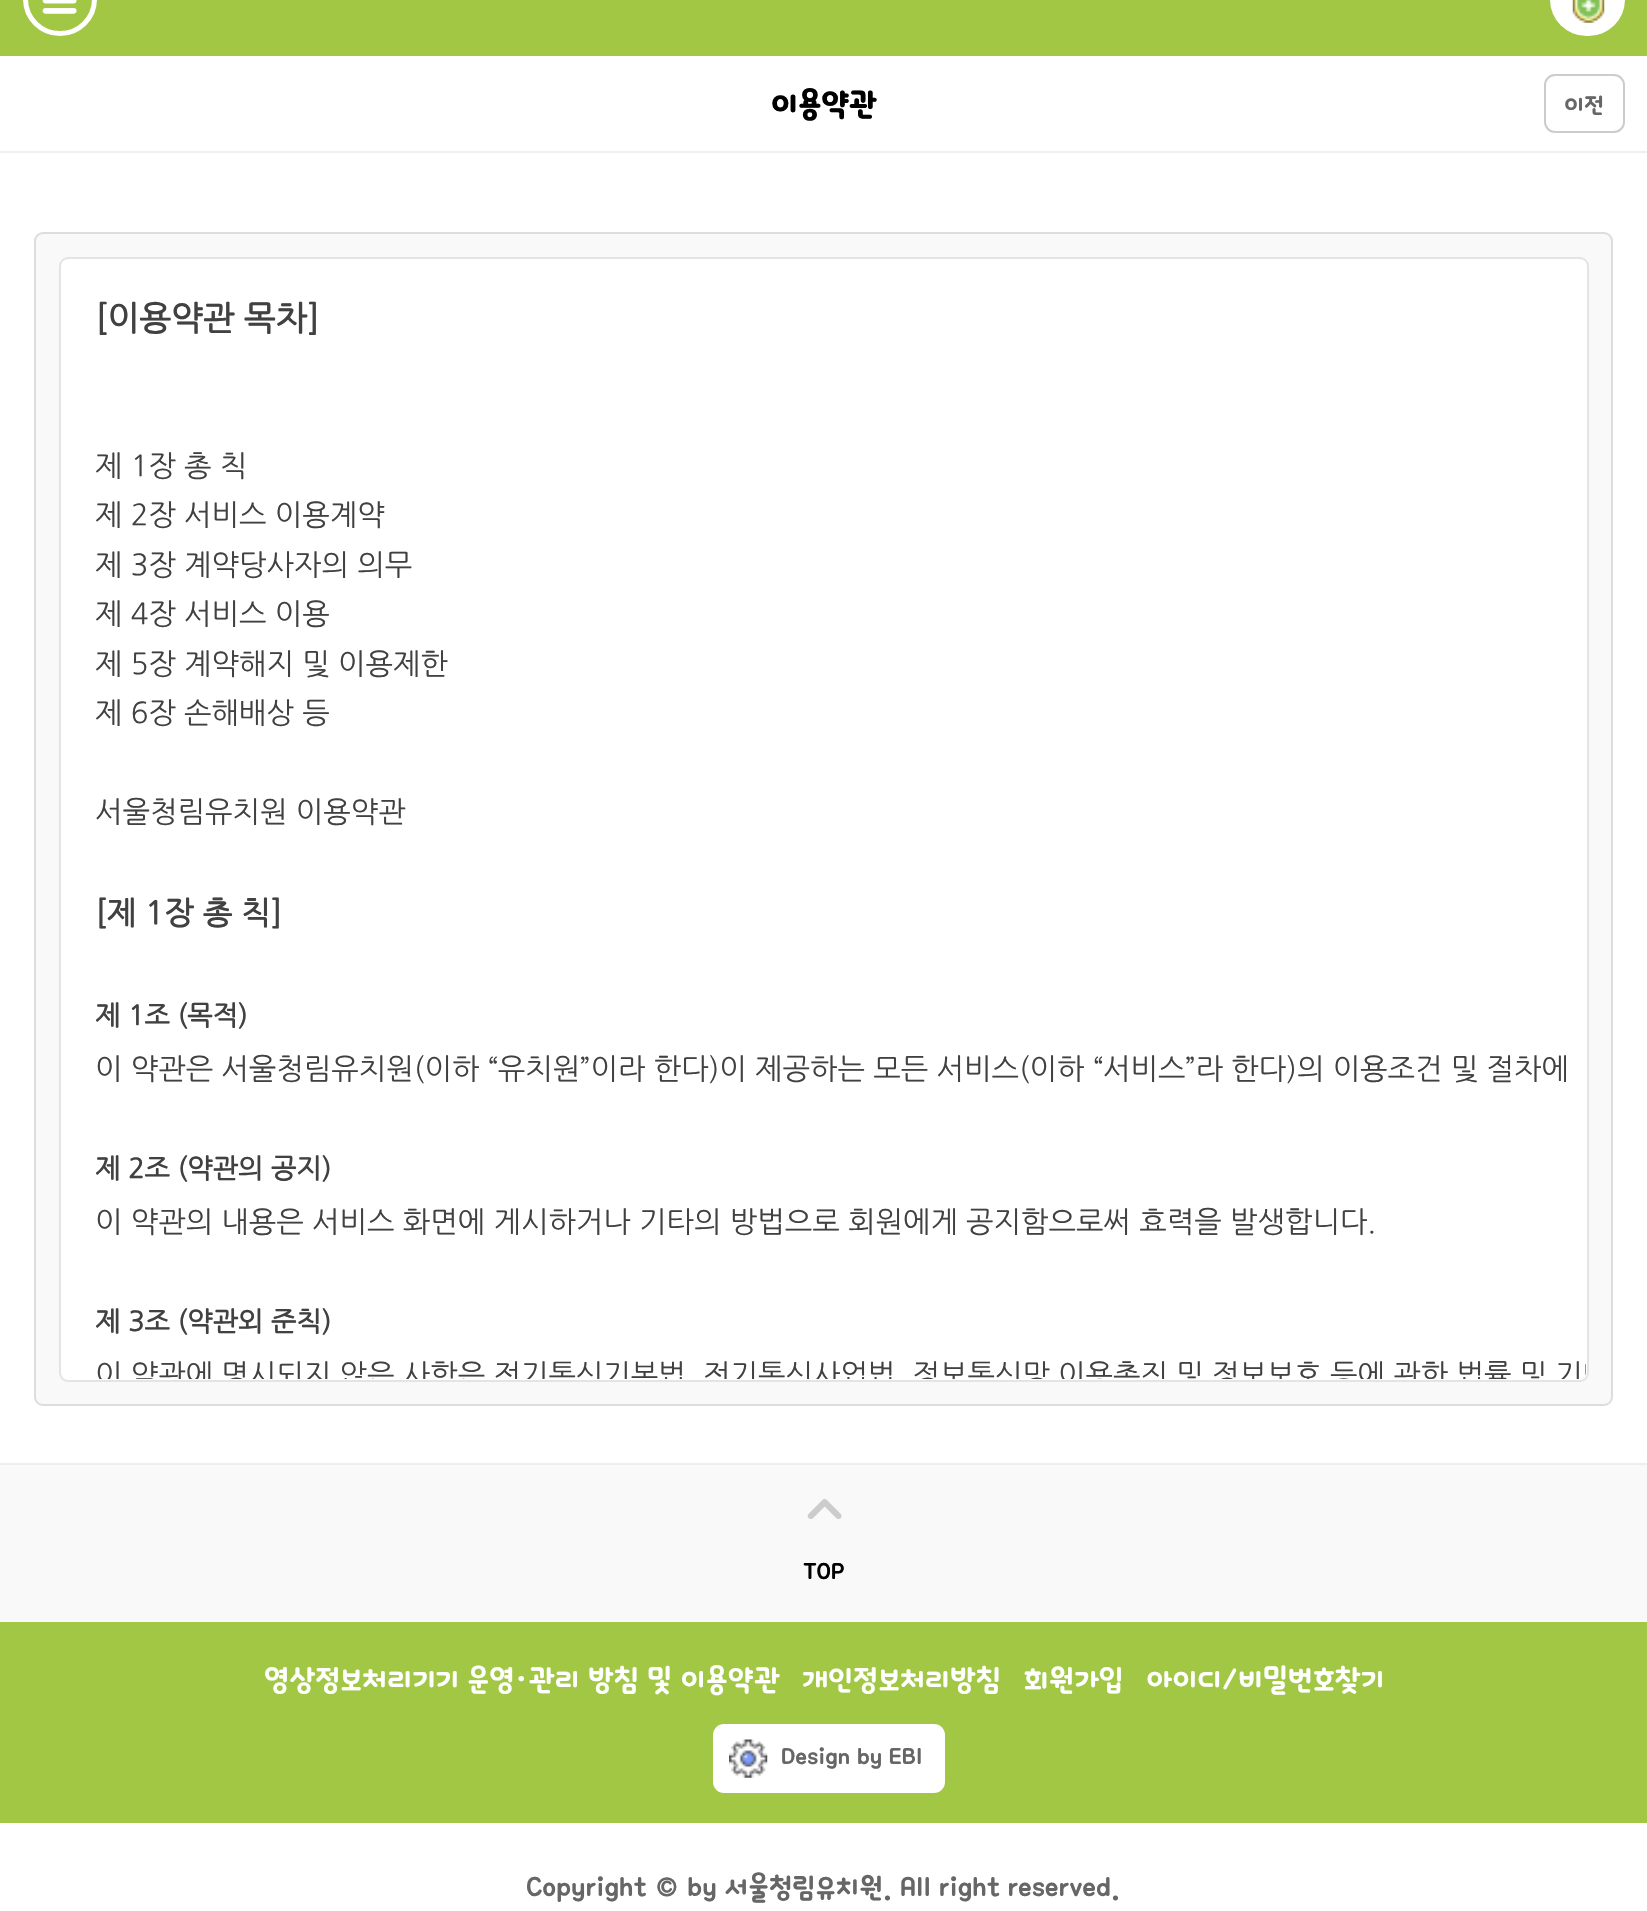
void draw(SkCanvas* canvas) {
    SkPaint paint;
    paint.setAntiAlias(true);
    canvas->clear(0xFFFFFFFF);
    paint.setColor(0xFFA1C745);
    canvas->drawRect(SkRect::MakeXYWH(0, 0, 1647, 56), paint);
    paint.setStyle(SkPaint::kStroke_Style);
    paint.setStrokeWidth(5);
    paint.setColor(0xFFFFFFFF);
    canvas->drawCircle(60, -1, 34.5f, paint);
    canvas->drawImageRect(SkImages::DeferredFromEncodedData(SkData::MakeFromFileName("img1.png")), SkRect::MakeXYWH(42, 0, 35, 14), SkSamplingOptions());
    paint.setStyle(SkPaint::kFill_Style);
    canvas->drawRoundRect(SkRect::MakeXYWH(1550, -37, 75, 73), 37, 37, paint);
    canvas->drawImageRect(SkImages::DeferredFromEncodedData(SkData::MakeFromFileName("img2.png")), SkRect::MakeXYWH(1572, 0, 33, 23), SkSamplingOptions());
    paint.setColor(0xFFEFEFEF);
    canvas->drawRect(SkRect::MakeXYWH(0, 151, 1647, 2), paint);
    SkFont font1(fontMgr->matchFamilyStyle("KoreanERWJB", SkFontStyle::Normal()), 36);
    font1.setSubpixel(true);
    paint.setColor(0xFF000000);
    canvas->drawString("이용약관", 771, 115, font1, paint);
    paint.setStyle(SkPaint::kStroke_Style);
    paint.setStrokeWidth(2);
    paint.setColor(0xFFCCCCCC);
    canvas->drawRoundRect(SkRect::MakeXYWH(1545, 75, 79, 57), 10, 10, paint);
    SkFont font2(fontMgr->matchFamilyStyle("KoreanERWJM", SkFontStyle::Normal()), 27);
    font2.setSubpixel(true);
    paint.setStyle(SkPaint::kFill_Style);
    paint.setColor(0xFF666666);
    canvas->drawString("이전", 1564, 113, font2, paint);
    paint.setColor(0xFFF9F9F9);
    canvas->drawRoundRect(SkRect::MakeXYWH(35, 233, 1577, 1172), 8, 8, paint);
    paint.setStyle(SkPaint::kStroke_Style);
    paint.setColor(0xFFDDDDDD);
    canvas->drawRoundRect(SkRect::MakeXYWH(35, 233, 1577, 1172), 8, 8, paint);
    paint.setStyle(SkPaint::kFill_Style);
    paint.setColor(0xFFFFFFFF);
    canvas->drawRoundRect(SkRect::MakeXYWH(60, 258, 1528, 1123), 8, 8, paint);
    paint.setStyle(SkPaint::kStroke_Style);
    paint.setColor(0xFFE4E4E4);
    canvas->drawRoundRect(SkRect::MakeXYWH(60, 258, 1528, 1123), 8, 8, paint);
    SkFont font3(fontMgr->matchFamilyStyle("NanumGothic", SkFontStyle::Bold()), 33.75f);
    font3.setSubpixel(true);
    paint.setStyle(SkPaint::kFill_Style);
    paint.setColor(0xFF414141);
    canvas->drawString("[이용약관 목차]", 95, 329, font3, paint);
    SkFont font4(fontMgr->matchFamilyStyle("NanumGothic", SkFontStyle::Normal()), 29.25f);
    font4.setSubpixel(true);
    canvas->drawString("제 1장 총 칙", 95, 475, font4, paint);
    canvas->drawString("제 2장 서비스 이용계약", 95, 524, font4, paint);
    canvas->drawString("제 3장 계약당사자의 의무", 95, 574, font4, paint);
    canvas->drawString("제 4장 서비스 이용", 95, 623, font4, paint);
    canvas->drawString("제 5장 계약해지 및 이용제한", 95, 673, font4, paint);
    canvas->drawString("제 6장 손해배상 등", 95, 722, font4, paint);
    canvas->drawString("서울청림유치원 이용약관", 95, 821, font4, paint);
    SkFont font5(fontMgr->matchFamilyStyle("NanumGothic", SkFontStyle::Bold()), 31.5f);
    font5.setSubpixel(true);
    canvas->drawString("[제 1장 총 칙]", 95, 923, font5, paint);
    SkFont font6(fontMgr->matchFamilyStyle("NanumGothic", SkFontStyle::Bold()), 27);
    font6.setSubpixel(true);
    canvas->drawString("제 1조 (목적)", 95, 1024, font6, paint);
    canvas->drawString("이 약관은 서울청림유치원(이하 “유치원”이라 한다)이 제공하는 모든 서비스(이하 “서비스”라 한다)의 이용조건 및 절차에", 95, 1078, font4, paint);
    canvas->drawString("제 2조 (약관의 공지)", 95, 1177, font6, paint);
    canvas->drawString("이 약관의 내용은 서비스 화면에 게시하거나 기타의 방법으로 회원에게 공지함으로써 효력을 발생합니다.", 95, 1231, font4, paint);
    canvas->drawString("제 3조 (약관외 준칙)", 95, 1330, font6, paint);
    canvas->save();
    canvas->clipPath(SkPathBuilder().moveTo(68, 259).lineTo(1579, 259).cubicTo(1583, 259, 1586, 262, 1586, 266).lineTo(1586, 1372).cubicTo(1586, 1376, 1583, 1379, 1579, 1379).lineTo(68, 1379).cubicTo(64, 1379, 61, 1376, 61, 1372).lineTo(61, 266).cubicTo(61, 262, 64, 259, 68, 259).close().detach(), true);
    canvas->drawString("이 약관에 명시되지 않은 사항은 전기통신기본법, 전기통신사업법, 정보통신망 이용촉진 및 정보보호 등에 관한 법률 및 기타", 95, 1384, font4, paint);
    canvas->restore();
    paint.setColor(0xFFF9F9F9);
    canvas->drawRect(SkRect::MakeXYWH(0, 1465, 1647, 157), paint);
    paint.setColor(0xFFEEEEEE);
    canvas->drawRect(SkRect::MakeXYWH(0, 1463, 1647, 2), paint);
    canvas->drawImageRect(SkImages::DeferredFromEncodedData(SkData::MakeFromFileName("img3.png")), SkRect::MakeXYWH(807, 1498, 35, 21), SkSamplingOptions());
    paint.setColor(0xFF000000);
    canvas->drawString("TOP", 803, 1580, font2, paint);
    paint.setColor(0xFFA1C745);
    canvas->drawRect(SkRect::MakeXYWH(0, 1622, 1647, 201), paint);
    SkFont font7(fontMgr->matchFamilyStyle("KoreanERWJM", SkFontStyle::Normal()), 33.75f);
    font7.setSubpixel(true);
    paint.setColor(0xFFFFFFFF);
    canvas->drawString("영상정보처리기기 운영·관리 방침 및 이용약관", 264, 1690, font7, paint);
    canvas->drawString("개인정보처리방침", 802, 1690, font7, paint);
    canvas->drawString("회원가입", 1023, 1690, font7, paint);
    canvas->drawString("아이디/비밀번호찾기", 1146, 1690, font7, paint);
    canvas->drawRoundRect(SkRect::MakeXYWH(713, 1724, 232, 69), 11, 11, paint);
    canvas->drawImageRect(SkImages::DeferredFromEncodedData(SkData::MakeFromFileName("img4.png")), SkRect::MakeXYWH(729, 1739, 39, 39), SkSamplingOptions());
    paint.setColor(0xFF666666);
    canvas->drawString("Design by EBI", 781, 1765, font2, paint);
    SkFont font8(fontMgr->matchFamilyStyle("KoreanERWJM", SkFontStyle::Normal()), 31.5f);
    font8.setSubpixel(true);
    canvas->drawString("Copyright © by 서울청림유치원. All right reserved.", 526, 1897, font8, paint);
}
